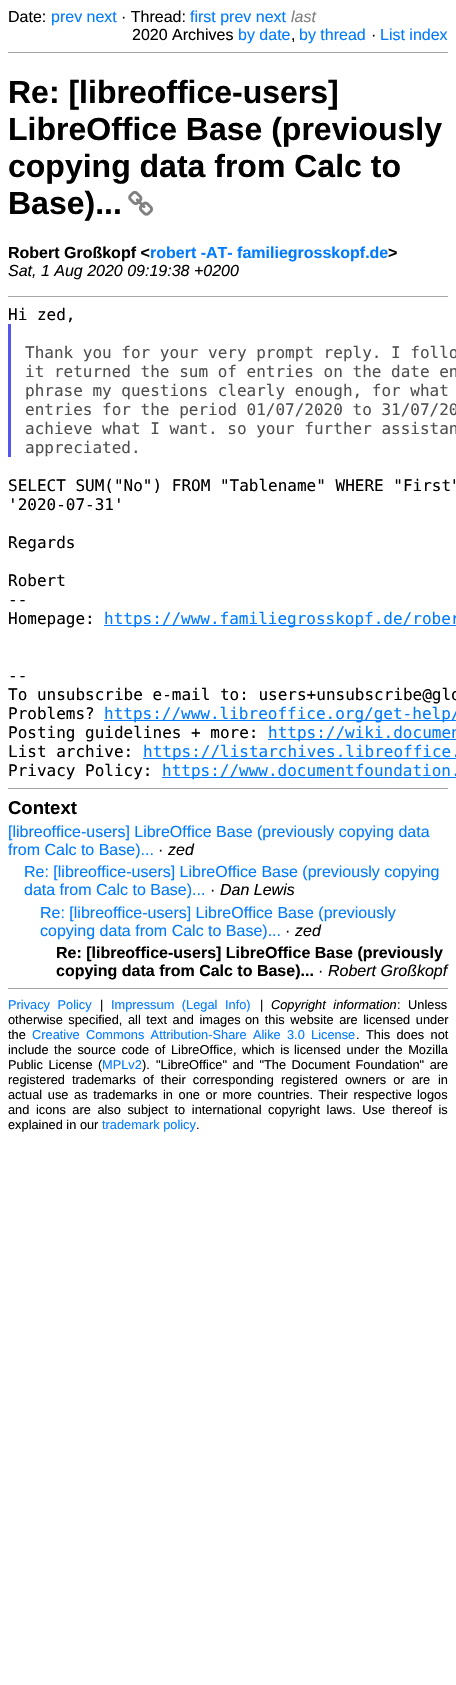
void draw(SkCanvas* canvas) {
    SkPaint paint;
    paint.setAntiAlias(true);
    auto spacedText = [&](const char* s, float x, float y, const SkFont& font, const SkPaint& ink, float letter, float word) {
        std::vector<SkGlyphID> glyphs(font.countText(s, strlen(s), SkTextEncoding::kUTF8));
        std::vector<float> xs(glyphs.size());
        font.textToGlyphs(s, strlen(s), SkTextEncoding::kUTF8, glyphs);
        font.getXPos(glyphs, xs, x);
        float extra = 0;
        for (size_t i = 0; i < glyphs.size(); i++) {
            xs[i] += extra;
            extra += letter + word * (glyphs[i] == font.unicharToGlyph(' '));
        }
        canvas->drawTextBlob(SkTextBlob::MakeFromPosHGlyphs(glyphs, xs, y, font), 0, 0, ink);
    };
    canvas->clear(0xFFFFFFFF);
    SkFont font1(fontMgr->matchFamilyStyle("Liberation Sans", SkFontStyle::Normal()), 16);
    font1.setSubpixel(true);
    paint.setColor(0xFF000000);
    canvas->drawString("Date:", 8, 22, font1, paint);
    paint.setColor(0xFF007BFF);
    canvas->drawString("prev next", 51, 22, font1, paint);
    paint.setColor(0xFF000000);
    canvas->drawString("· Thread:", 121, 22, font1, paint);
    paint.setColor(0xFF007BFF);
    canvas->drawString("first prev next", 190, 22, font1, paint);
    SkFont font2(fontMgr->matchFamilyStyle("Liberation Sans", SkFontStyle::Italic()), 16);
    font2.setSubpixel(true);
    paint.setColor(0xFF808080);
    canvas->drawString("last", 291, 22, font2, paint);
    paint.setColor(0xFF000000);
    canvas->drawString("2020 Archives", 132, 40, font1, paint);
    paint.setColor(0xFF007BFF);
    canvas->drawString("by date", 238, 40, font1, paint);
    canvas->drawString("by thread", 299, 40, font1, paint);
    paint.setColor(0xFF000000);
    canvas->drawString("·", 371, 40, font1, paint);
    paint.setColor(0xFF007BFF);
    canvas->drawString("List index", 380, 40, font1, paint);
    paint.setColor(0xFF000000);
    canvas->drawString(",", 291, 40, font1, paint);
    paint.setColor(0xFFA6A6A6);
    canvas->drawRect(SkRect::MakeXYWH(8, 52, 440, 1), paint);
    SkFont font3(fontMgr->matchFamilyStyle("Liberation Sans", SkFontStyle::Bold()), 32);
    font3.setSubpixel(true);
    paint.setColor(0xFF000000);
    canvas->drawString("Re: [libreoffice-users]", 8, 103, font3, paint);
    canvas->drawString("LibreOffice Base (previously", 8, 140, font3, paint);
    canvas->drawString("copying data from Calc to", 8, 177, font3, paint);
    canvas->drawString("Base)...", 8, 214, font3, paint);
    canvas->drawImageRect(SkImages::DeferredFromEncodedData(SkData::MakeFromFileName("img1.png")), SkRect::MakeXYWH(128, 190, 25, 26), SkSamplingOptions());
    SkFont font4(fontMgr->matchFamilyStyle("Liberation Sans", SkFontStyle::Bold()), 16);
    font4.setSubpixel(true);
    canvas->drawString("Robert Großkopf <", 8, 258, font4, paint);
    paint.setColor(0xFF007BFF);
    canvas->drawString("robert -AT- familiegrosskopf.de", 150, 258, font4, paint);
    paint.setColor(0xFF000000);
    canvas->drawString(">", 388, 258, font4, paint);
    canvas->drawString("Sat, 1 Aug 2020 09:19:38 +0200", 8, 276, font2, paint);
    paint.setColor(0xFFA6A6A6);
    canvas->drawRect(SkRect::MakeXYWH(8, 296, 440, 1), paint);
    SkFont font5(fontMgr->matchFamilyStyle("DejaVu Sans Mono", SkFontStyle::Normal()), 16);
    font5.setSubpixel(true);
    paint.setColor(0xFF000000);
    canvas->drawString("Hi zed,", 8, 320, font5, paint);
    paint.setColor(0xFF5555EE);
    canvas->drawRect(SkRect::MakeXYWH(8, 324, 3, 133), paint);
    paint.setColor(0xFF505050);
    canvas->drawString("Thank you for your very prompt reply. I follo", 25, 358, font5, paint);
    canvas->drawString("it returned the sum of entries on the date en", 25, 377, font5, paint);
    canvas->drawString("phrase my questions clearly enough, for what", 25, 396, font5, paint);
    canvas->drawString("entries for the period 01/07/2020 to 31/07/20", 25, 415, font5, paint);
    canvas->drawString("achieve what I want. so your further assistan", 25, 434, font5, paint);
    canvas->drawString("appreciated.", 25, 453, font5, paint);
    paint.setColor(0xFF000000);
    canvas->drawString("SELECT SUM(\"No\") FROM \"Tablename\" WHERE \"First\"", 8, 491, font5, paint);
    canvas->drawString("'2020-07-31'", 8, 510, font5, paint);
    canvas->drawString("Regards", 8, 548, font5, paint);
    canvas->drawString("Robert", 8, 586, font5, paint);
    canvas->drawString("--", 8, 605, font5, paint);
    canvas->drawString("Homepage:", 8, 624, font5, paint);
    paint.setColor(0xFF007BFF);
    canvas->drawRect(SkRect::MakeXYWH(104, 625, 352, 1), paint);
    canvas->drawString("https://www.familiegrosskopf.de/rober", 104, 624, font5, paint);
    paint.setColor(0xFF000000);
    canvas->drawString("--", 8, 681, font5, paint);
    canvas->drawString("To unsubscribe e-mail to: users+unsubscribe@glo", 8, 700, font5, paint);
    canvas->drawString("Problems?", 8, 719, font5, paint);
    paint.setColor(0xFF007BFF);
    canvas->drawRect(SkRect::MakeXYWH(104, 720, 352, 1), paint);
    canvas->drawString("https://www.libreoffice.org/get-help/", 104, 719, font5, paint);
    paint.setColor(0xFF000000);
    canvas->drawString("Posting guidelines + more:", 8, 738, font5, paint);
    paint.setColor(0xFF007BFF);
    canvas->drawRect(SkRect::MakeXYWH(268, 739, 188, 1), paint);
    canvas->drawString("https://wiki.documen", 268, 738, font5, paint);
    paint.setColor(0xFF000000);
    canvas->drawString("List archive:", 8, 757, font5, paint);
    paint.setColor(0xFF007BFF);
    canvas->drawRect(SkRect::MakeXYWH(143, 758, 313, 1), paint);
    canvas->drawString("https://listarchives.libreoffice.", 143, 757, font5, paint);
    paint.setColor(0xFF000000);
    canvas->drawString("Privacy Policy:", 8, 776, font5, paint);
    paint.setColor(0xFF007BFF);
    canvas->drawRect(SkRect::MakeXYWH(162, 777, 294, 1), paint);
    canvas->drawString("https://www.documentfoundation.", 162, 776, font5, paint);
    paint.setColor(0xFFA6A6A6);
    canvas->drawRect(SkRect::MakeXYWH(8, 788, 440, 1), paint);
    SkFont font6(fontMgr->matchFamilyStyle("Liberation Sans", SkFontStyle::Bold()), 18.5f);
    font6.setSubpixel(true);
    paint.setColor(0xFF000000);
    canvas->drawString("Context", 8, 814, font6, paint);
    paint.setColor(0xFF007BFF);
    canvas->drawString("[libreoffice-users] LibreOffice Base (previously copying data", 8, 837, font1, paint);
    canvas->drawString("from Calc to Base)...", 8, 855, font1, paint);
    paint.setColor(0xFF000000);
    canvas->drawString("·", 158, 855, font1, paint);
    canvas->drawString("zed", 168, 855, font2, paint);
    paint.setColor(0xFF007BFF);
    canvas->drawString("Re: [libreoffice-users] LibreOffice Base (previously copying", 24, 877, font1, paint);
    canvas->drawString("data from Calc to Base)...", 24, 895, font1, paint);
    paint.setColor(0xFF000000);
    canvas->drawString("·", 210, 895, font1, paint);
    canvas->drawString("Dan Lewis", 220, 895, font2, paint);
    paint.setColor(0xFF007BFF);
    canvas->drawString("Re: [libreoffice-users] LibreOffice Base (previously", 40, 918, font1, paint);
    canvas->drawString("copying data from Calc to Base)...", 40, 936, font1, paint);
    paint.setColor(0xFF000000);
    canvas->drawString("·", 285, 936, font1, paint);
    canvas->drawString("zed", 295, 936, font2, paint);
    canvas->drawString("Re: [libreoffice-users] LibreOffice Base (previously", 56, 958, font4, paint);
    canvas->drawString("copying data from Calc to Base)...", 56, 976, font4, paint);
    canvas->drawString("·", 318, 976, font1, paint);
    canvas->drawString("Robert Großkopf", 328, 976, font2, paint);
    paint.setColor(0xFFA6A6A6);
    canvas->drawRect(SkRect::MakeXYWH(8, 988, 440, 1), paint);
    SkFont font7(fontMgr->matchFamilyStyle("Liberation Sans", SkFontStyle::Normal()), 12.8f);
    font7.setSubpixel(true);
    paint.setColor(0xFF007BFF);
    spacedText("Privacy Policy", 8, 1009, font7, paint, 0, 4);
    paint.setColor(0xFF000000);
    canvas->drawString("|", 100, 1009, font7, paint);
    paint.setColor(0xFF007BFF);
    spacedText("Impressum (Legal Info)", 111, 1009, font7, paint, 0, 4);
    paint.setColor(0xFF000000);
    canvas->drawString("|", 260, 1009, font7, paint);
    SkFont font8(fontMgr->matchFamilyStyle("Liberation Sans", SkFontStyle::Italic()), 12.8f);
    font8.setSubpixel(true);
    spacedText("Copyright information", 271, 1009, font8, paint, 0, 4);
    spacedText(": Unless", 397, 1009, font7, paint, 0, 4);
    spacedText("otherwise specified, all text and images", 8, 1024, font7, paint, 0, 2);
    spacedText("on this website are licensed under", 245, 1024, font7, paint, 0, 2);
    canvas->drawString("the", 8, 1039, font7, paint);
    paint.setColor(0xFF007BFF);
    spacedText("Creative Commons Attribution-Share Alike 3.0 License", 32, 1039, font7, paint, 0, 2.75f);
    paint.setColor(0xFF000000);
    canvas->drawString(".", 356, 1039, font7, paint);
    spacedText("This does not", 366, 1039, font7, paint, 0, 2.75f);
    spacedText("include the source code of LibreOffice, which is", 8, 1054, font7, paint, 0, 2);
    spacedText("licensed under the Mozilla", 294, 1054, font7, paint, 0, 2);
    spacedText("Public License (", 8, 1069, font7, paint, 0, 2);
    paint.setColor(0xFF007BFF);
    canvas->drawString("MPLv2", 102, 1069, font7, paint);
    paint.setColor(0xFF000000);
    canvas->drawString(").", 142, 1069, font7, paint);
    spacedText("\"LibreOffice\" and \"The Document Foundation\" are", 156, 1069, font7, paint, 0, 2);
    spacedText("registered trademarks of their corresponding registered owners or are", 8, 1084, font7, paint, 0, 3.5f);
    canvas->drawString("in", 438, 1084, font7, paint);
    spacedText("actual use as trademarks in one or more countries. Their respective", 8, 1099, font7, paint, 0, 2.1f);
    canvas->drawString("logos", 417, 1099, font7, paint);
    spacedText("and icons are also subject to international copyright laws. Use", 8, 1114, font7, paint, 0, 3);
    spacedText("thereof is", 392, 1114, font7, paint, 0, 3);
    canvas->drawString("explained in our", 8, 1129, font7, paint);
    paint.setColor(0xFF007BFF);
    canvas->drawString("trademark policy", 102, 1129, font7, paint);
    paint.setColor(0xFF000000);
    canvas->drawString(".", 196, 1129, font7, paint);
}
